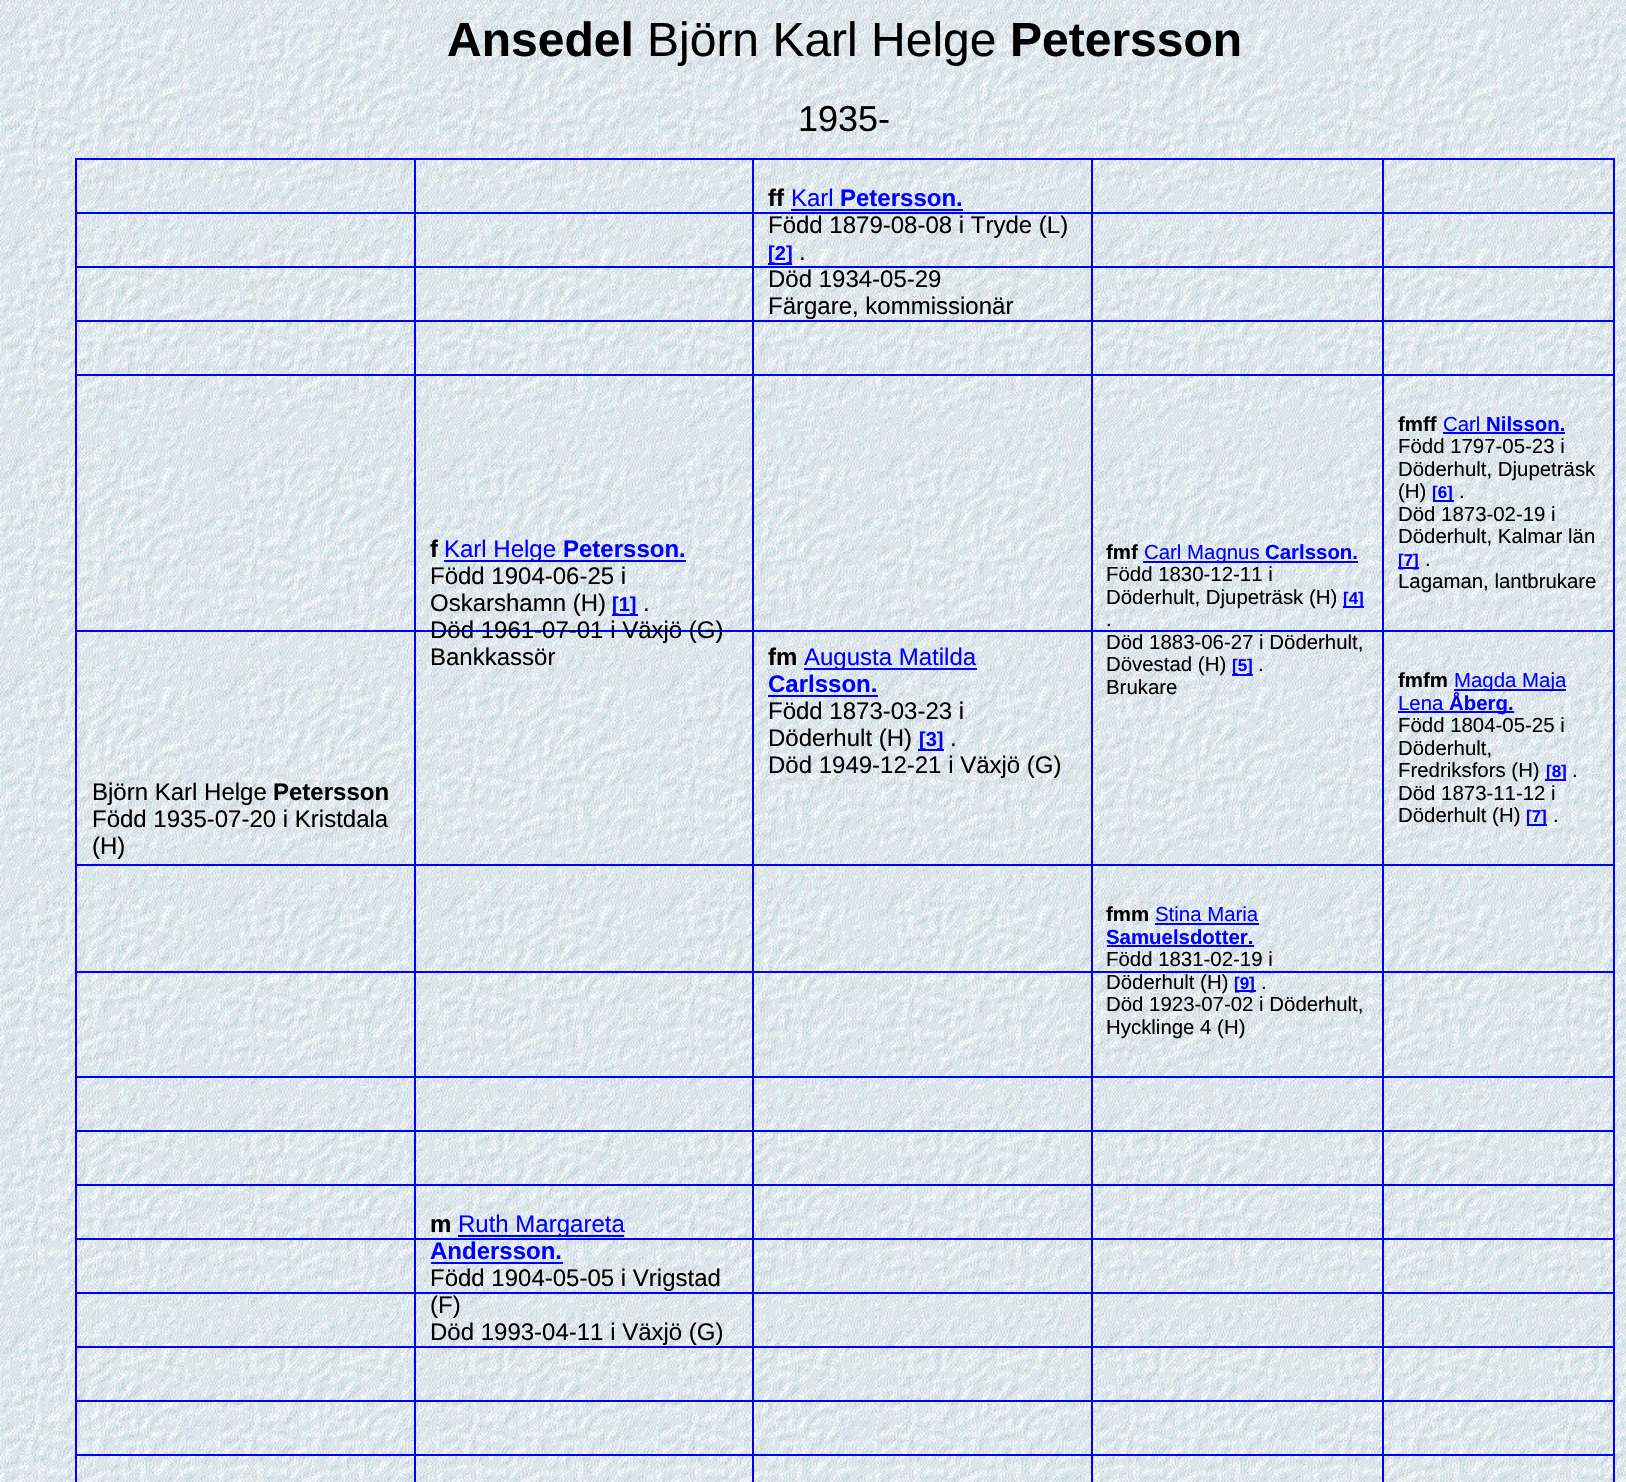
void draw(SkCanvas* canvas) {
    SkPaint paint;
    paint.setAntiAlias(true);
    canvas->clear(0xFFFFFFFF);
    canvas->drawImageRect(SkImages::DeferredFromEncodedData(SkData::MakeFromFileName("img1.png")), SkRect::MakeXYWH(0, 0, 1626, 1482), SkSamplingOptions());
    SkFont font1(fontMgr->matchFamilyStyle("Liberation Sans", SkFontStyle::Bold()), 48);
    font1.setSubpixel(true);
    paint.setColor(0xFF000000);
    canvas->drawString("Ansedel", 447, 56, font1, paint);
    SkFont font2(fontMgr->matchFamilyStyle("Liberation Sans", SkFontStyle::Normal()), 48);
    font2.setSubpixel(true);
    canvas->drawString("Björn Karl Helge", 647, 56, font2, paint);
    canvas->drawString("Petersson", 1010, 56, font1, paint);
    SkFont font3(fontMgr->matchFamilyStyle("Liberation Sans", SkFontStyle::Normal()), 36);
    font3.setSubpixel(true);
    canvas->drawString("1935-", 798, 131, font3, paint);
    paint.setColor(0xFF0000FF);
    canvas->drawRect(SkRect::MakeXYWH(75, 158, 1539, 2), paint);
    canvas->drawRect(SkRect::MakeXYWH(1613, 158, 2, 1324), paint);
    canvas->drawRect(SkRect::MakeXYWH(75, 158, 2, 1324), paint);
    canvas->drawRect(SkRect::MakeXYWH(75, 1454, 1539, 2), paint);
    canvas->drawRect(SkRect::MakeXYWH(75, 1400, 1539, 2), paint);
    canvas->drawRect(SkRect::MakeXYWH(75, 1292, 1539, 2), paint);
    canvas->drawRect(SkRect::MakeXYWH(75, 212, 1539, 2), paint);
    canvas->drawRect(SkRect::MakeXYWH(75, 266, 1539, 2), paint);
    canvas->drawRect(SkRect::MakeXYWH(75, 320, 1539, 2), paint);
    canvas->drawRect(SkRect::MakeXYWH(75, 374, 1539, 2), paint);
    canvas->drawRect(SkRect::MakeXYWH(75, 630, 1539, 2), paint);
    canvas->drawRect(SkRect::MakeXYWH(75, 864, 1539, 2), paint);
    canvas->drawRect(SkRect::MakeXYWH(75, 971, 1539, 2), paint);
    canvas->drawRect(SkRect::MakeXYWH(75, 1130, 1539, 2), paint);
    canvas->drawRect(SkRect::MakeXYWH(75, 1184, 1539, 2), paint);
    canvas->drawRect(SkRect::MakeXYWH(75, 1076, 1539, 2), paint);
    canvas->drawRect(SkRect::MakeXYWH(75, 1238, 1539, 2), paint);
    canvas->drawRect(SkRect::MakeXYWH(75, 1346, 1539, 2), paint);
    canvas->drawRect(SkRect::MakeXYWH(1382, 158, 2, 1324), paint);
    canvas->drawRect(SkRect::MakeXYWH(1091, 158, 2, 1324), paint);
    canvas->drawRect(SkRect::MakeXYWH(752, 158, 2, 1324), paint);
    SkFont font4(fontMgr->matchFamilyStyle("Liberation Sans", SkFontStyle::Bold()), 24);
    font4.setSubpixel(true);
    paint.setColor(0xFF000000);
    canvas->drawString("ff", 768, 206, font4, paint);
    SkFont font5(fontMgr->matchFamilyStyle("Liberation Sans", SkFontStyle::Normal()), 24);
    font5.setSubpixel(true);
    paint.setColor(0xFF0000FF);
    canvas->drawString("Karl", 791, 206, font5, paint);
    canvas->drawString("Petersson.", 840, 206, font4, paint);
    canvas->drawRect(SkRect::MakeXYWH(791, 209, 172, 2), paint);
    paint.setColor(0xFF000000);
    canvas->drawString("Född 1879-08-08 i Tryde (L)", 768, 233, font5, paint);
    paint.setColor(0xFF0000FF);
    canvas->drawRect(SkRect::MakeXYWH(768, 263, 6, 2), paint);
    SkFont font6(fontMgr->matchFamilyStyle("Liberation Sans", SkFontStyle::Bold()), 20);
    font6.setSubpixel(true);
    canvas->drawString("[2", 768, 260, font6, paint);
    canvas->drawRect(SkRect::MakeXYWH(774, 263, 18, 2), paint);
    canvas->drawString("]", 786, 260, font6, paint);
    paint.setColor(0xFF000000);
    canvas->drawString(".", 799, 260, font5, paint);
    canvas->drawString("Död 1934-05-29", 768, 287, font5, paint);
    canvas->drawString("Färgare, kommissionär", 768, 314, font5, paint);
    canvas->drawString("f", 430, 557, font4, paint);
    paint.setColor(0xFF0000FF);
    canvas->drawRect(SkRect::MakeXYWH(444, 560, 242, 2), paint);
    canvas->drawString("Karl Helge", 444, 557, font5, paint);
    canvas->drawString("Petersson.", 563, 557, font4, paint);
    paint.setColor(0xFF000000);
    canvas->drawString("Född 1904-06-25 i", 430, 584, font5, paint);
    canvas->drawString("Oskarshamn (H)", 430, 611, font5, paint);
    paint.setColor(0xFF0000FF);
    canvas->drawRect(SkRect::MakeXYWH(612, 614, 26, 2), paint);
    canvas->drawString("[1]", 612, 611, font6, paint);
    paint.setColor(0xFF000000);
    canvas->drawString(".", 643, 611, font5, paint);
    canvas->drawString("Död 1961-07-01 i Växjö (G)", 430, 638, font5, paint);
    canvas->drawString("Bankkassör", 430, 665, font5, paint);
    canvas->drawString("Björn Karl Helge", 92, 800, font5, paint);
    canvas->drawString("Petersson", 273, 800, font4, paint);
    canvas->drawString("Född 1935-07-20 i Kristdala", 92, 827, font5, paint);
    canvas->drawString("(H)", 92, 854, font5, paint);
    SkFont font7(fontMgr->matchFamilyStyle("Liberation Sans", SkFontStyle::Bold()), 20.4f);
    font7.setSubpixel(true);
    canvas->drawString("fmff", 1398, 431, font7, paint);
    SkFont font8(fontMgr->matchFamilyStyle("Liberation Sans", SkFontStyle::Normal()), 20.4f);
    font8.setSubpixel(true);
    paint.setColor(0xFF0000FF);
    canvas->drawString("Carl", 1443, 431, font8, paint);
    canvas->drawRect(SkRect::MakeXYWH(1443, 432, 122, 2), paint);
    canvas->drawString("Nilsson.", 1486, 431, font7, paint);
    paint.setColor(0xFF000000);
    canvas->drawString("Född 1797-05-23 i", 1398, 453, font8, paint);
    canvas->drawString("Döderhult, Djupeträsk", 1398, 476, font8, paint);
    canvas->drawString("(H)", 1398, 498, font8, paint);
    paint.setColor(0xFF0000FF);
    canvas->drawRect(SkRect::MakeXYWH(1433, 500, 21, 2), paint);
    SkFont font9(fontMgr->matchFamilyStyle("Liberation Sans", SkFontStyle::Bold()), 17);
    font9.setSubpixel(true);
    canvas->drawString("[6]", 1432, 498, font9, paint);
    paint.setColor(0xFF000000);
    canvas->drawString(".", 1459, 498, font8, paint);
    canvas->drawString("Död 1873-02-19 i", 1398, 521, font8, paint);
    canvas->drawString("Döderhult, Kalmar län", 1398, 543, font8, paint);
    paint.setColor(0xFF0000FF);
    canvas->drawRect(SkRect::MakeXYWH(1398, 567, 21, 2), paint);
    canvas->drawString("[7]", 1398, 566, font9, paint);
    paint.setColor(0xFF000000);
    canvas->drawString(".", 1425, 566, font8, paint);
    canvas->drawString("Lagaman, lantbrukare", 1398, 588, font8, paint);
    canvas->drawString("fmf", 1106, 559, font7, paint);
    paint.setColor(0xFF0000FF);
    canvas->drawRect(SkRect::MakeXYWH(1143, 561, 215, 2), paint);
    canvas->drawString("Carl Magnus", 1144, 559, font8, paint);
    canvas->drawString("Carlsson.", 1265, 559, font7, paint);
    paint.setColor(0xFF000000);
    canvas->drawString("Född 1830-12-11 i", 1106, 581, font8, paint);
    canvas->drawString("Döderhult, Djupeträsk (H)", 1106, 604, font8, paint);
    paint.setColor(0xFF0000FF);
    canvas->drawRect(SkRect::MakeXYWH(1343, 606, 15, 2), paint);
    canvas->drawString("[4", 1343, 604, font9, paint);
    canvas->drawRect(SkRect::MakeXYWH(1358, 606, 6, 2), paint);
    canvas->drawString("]", 1358, 604, font9, paint);
    paint.setColor(0xFF000000);
    canvas->drawString(".", 1106, 626, font8, paint);
    canvas->drawString("Död 1883-06-27 i Döderhult,", 1106, 649, font8, paint);
    canvas->drawString("Dövestad (H)", 1106, 671, font8, paint);
    paint.setColor(0xFF0000FF);
    canvas->drawRect(SkRect::MakeXYWH(1232, 674, 21, 2), paint);
    canvas->drawString("[5]", 1232, 671, font9, paint);
    paint.setColor(0xFF000000);
    canvas->drawString(".", 1258, 671, font8, paint);
    canvas->drawString("Brukare", 1106, 694, font8, paint);
    canvas->drawString("fm", 768, 665, font4, paint);
    paint.setColor(0xFF0000FF);
    canvas->drawRect(SkRect::MakeXYWH(804, 668, 173, 2), paint);
    canvas->drawString("Augusta Matilda", 804, 665, font5, paint);
    canvas->drawString("Carlsson.", 768, 692, font4, paint);
    canvas->drawRect(SkRect::MakeXYWH(768, 695, 110, 2), paint);
    paint.setColor(0xFF000000);
    canvas->drawString("Född 1873-03-23 i", 768, 719, font5, paint);
    canvas->drawString("Döderhult (H)", 768, 746, font5, paint);
    paint.setColor(0xFF0000FF);
    canvas->drawRect(SkRect::MakeXYWH(918, 749, 26, 2), paint);
    canvas->drawString("[3]", 919, 746, font6, paint);
    paint.setColor(0xFF000000);
    canvas->drawString(".", 950, 746, font5, paint);
    canvas->drawString("Död 1949-12-21 i Växjö (G)", 768, 773, font5, paint);
    canvas->drawString("fmfm", 1398, 687, font7, paint);
    paint.setColor(0xFF0000FF);
    canvas->drawRect(SkRect::MakeXYWH(1454, 689, 112, 2), paint);
    canvas->drawString("Magda Maja", 1454, 687, font8, paint);
    canvas->drawString("Lena", 1398, 710, font8, paint);
    canvas->drawRect(SkRect::MakeXYWH(1398, 711, 116, 2), paint);
    canvas->drawString("Åberg.", 1449, 710, font7, paint);
    paint.setColor(0xFF000000);
    canvas->drawString("Född 1804-05-25 i", 1398, 732, font8, paint);
    canvas->drawString("Döderhult,", 1398, 755, font8, paint);
    canvas->drawString("Fredriksfors (H)", 1398, 777, font8, paint);
    paint.setColor(0xFF0000FF);
    canvas->drawRect(SkRect::MakeXYWH(1545, 779, 6, 2), paint);
    canvas->drawString("[8", 1546, 777, font9, paint);
    canvas->drawRect(SkRect::MakeXYWH(1551, 779, 15, 2), paint);
    canvas->drawString("]", 1561, 777, font9, paint);
    paint.setColor(0xFF000000);
    canvas->drawString(".", 1572, 777, font8, paint);
    canvas->drawString("Död 1873-11-12 i", 1398, 800, font8, paint);
    canvas->drawString("Döderhult (H)", 1398, 822, font8, paint);
    paint.setColor(0xFF0000FF);
    canvas->drawRect(SkRect::MakeXYWH(1527, 824, 20, 2), paint);
    canvas->drawString("[7]", 1526, 822, font9, paint);
    paint.setColor(0xFF000000);
    canvas->drawString(".", 1553, 822, font8, paint);
    canvas->drawString("fmm", 1106, 921, font7, paint);
    paint.setColor(0xFF0000FF);
    canvas->drawString("Stina Maria", 1155, 921, font8, paint);
    canvas->drawRect(SkRect::MakeXYWH(1155, 923, 104, 2), paint);
    canvas->drawString("Samuelsdotter.", 1106, 944, font7, paint);
    canvas->drawRect(SkRect::MakeXYWH(1107, 945, 147, 2), paint);
    paint.setColor(0xFF000000);
    canvas->drawString("Född 1831-02-19 i", 1106, 966, font8, paint);
    canvas->drawString("Döderhult (H)", 1106, 989, font8, paint);
    paint.setColor(0xFF0000FF);
    canvas->drawRect(SkRect::MakeXYWH(1235, 990, 21, 2), paint);
    canvas->drawString("[9]", 1234, 989, font9, paint);
    paint.setColor(0xFF000000);
    canvas->drawString(".", 1261, 989, font8, paint);
    canvas->drawString("Död 1923-07-02 i Döderhult,", 1106, 1011, font8, paint);
    canvas->drawString("Hycklinge 4 (H)", 1106, 1034, font8, paint);
    paint.setColor(0xFF0000FF);
    canvas->drawRect(SkRect::MakeXYWH(414, 158, 2, 1324), paint);
    paint.setColor(0xFF000000);
    canvas->drawString("m", 430, 1232, font4, paint);
    paint.setColor(0xFF0000FF);
    canvas->drawRect(SkRect::MakeXYWH(458, 1235, 166, 2), paint);
    canvas->drawString("Ruth Margareta", 458, 1232, font5, paint);
    canvas->drawString("Andersson.", 430, 1259, font4, paint);
    canvas->drawRect(SkRect::MakeXYWH(431, 1262, 132, 2), paint);
    paint.setColor(0xFF000000);
    canvas->drawString("Född 1904-05-05 i Vrigstad", 430, 1286, font5, paint);
    canvas->drawString("(F)", 430, 1313, font5, paint);
    canvas->drawString("Död 1993-04-11 i Växjö (G)", 430, 1340, font5, paint);
}
